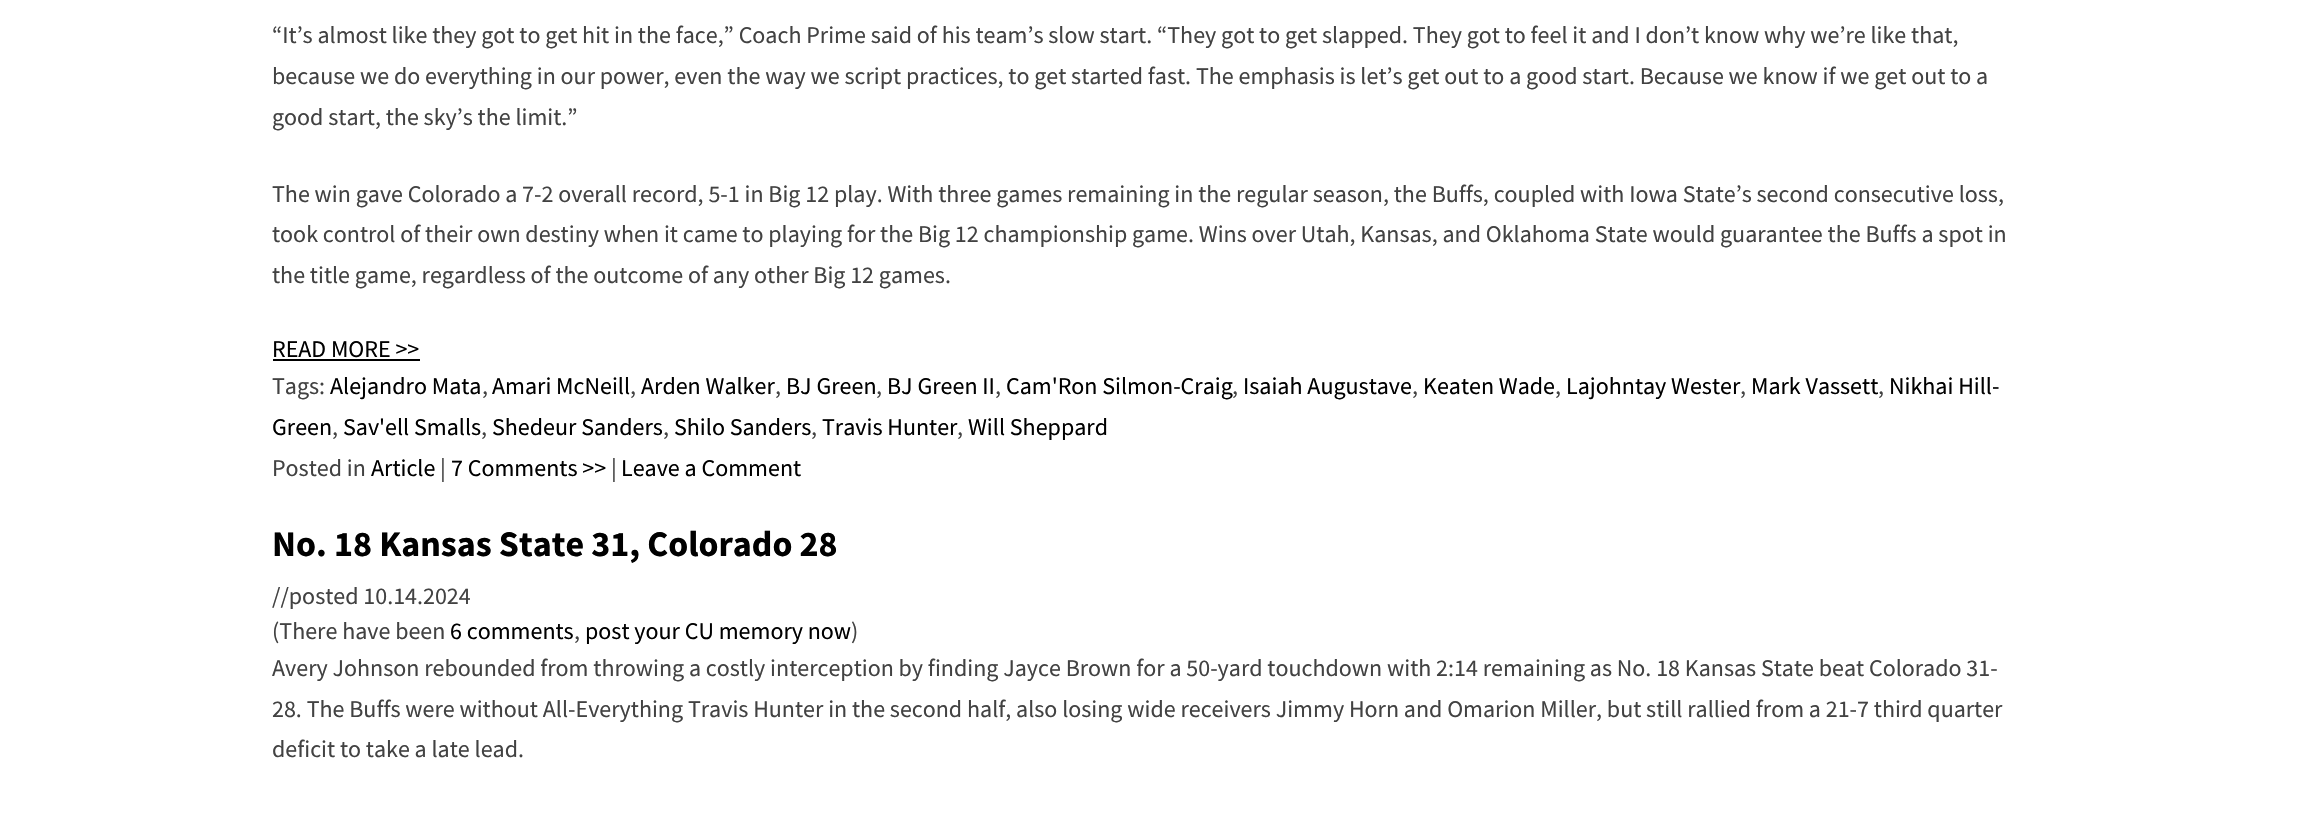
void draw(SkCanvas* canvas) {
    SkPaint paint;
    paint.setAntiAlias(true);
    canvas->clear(0xFFFFFFFF);
    SkFont font1(fontMgr->matchFamilyStyle("Source Sans Pro", SkFontStyle::Normal()), 24);
    font1.setSubpixel(true);
    paint.setColor(0xFF424242);
    canvas->drawString("“It’s almost like they got to get hit in the face,” Coach Prime said of his team’s slow start. “They got to get slapped. They got to feel it and I don’t know why we’re like that,", 272, 43, font1, paint);
    canvas->drawString("because we do everything in our power, even the way we script practices, to get started fast. The emphasis is let’s get out to a good start. Because we know if we get out to a", 272, 84, font1, paint);
    canvas->drawString("good start, the sky’s the limit.”", 272, 125, font1, paint);
    canvas->drawString("The win gave Colorado a 7-2 overall record, 5-1 in Big 12 play. With three games remaining in the regular season, the Buffs, coupled with Iowa State’s second consecutive loss,", 272, 202, font1, paint);
    canvas->drawString("took control of their own destiny when it came to playing for the Big 12 championship game. Wins over Utah, Kansas, and Oklahoma State would guarantee the Buffs a spot in", 272, 242, font1, paint);
    canvas->drawString("the title game, regardless of the outcome of any other Big 12 games.", 272, 283, font1, paint);
    paint.setColor(0xFF000000);
    canvas->drawString("READ MORE >>", 272, 357, font1, paint);
    canvas->drawRect(SkRect::MakeXYWH(273, 359, 147, 2), paint);
    paint.setColor(0xFF424242);
    canvas->drawString("Tags:", 272, 394, font1, paint);
    paint.setColor(0xFF000000);
    canvas->drawString("Alejandro Mata", 330, 394, font1, paint);
    paint.setColor(0xFF424242);
    canvas->drawString(",", 482, 394, font1, paint);
    paint.setColor(0xFF000000);
    canvas->drawString("Amari McNeill", 492, 394, font1, paint);
    paint.setColor(0xFF424242);
    canvas->drawString(",", 630, 394, font1, paint);
    paint.setColor(0xFF000000);
    canvas->drawString("Arden Walker", 641, 394, font1, paint);
    paint.setColor(0xFF424242);
    canvas->drawString(",", 775, 394, font1, paint);
    paint.setColor(0xFF000000);
    canvas->drawString("BJ Green", 786, 394, font1, paint);
    paint.setColor(0xFF424242);
    canvas->drawString(",", 876, 394, font1, paint);
    paint.setColor(0xFF000000);
    canvas->drawString("BJ Green II", 887, 394, font1, paint);
    paint.setColor(0xFF424242);
    canvas->drawString(",", 995, 394, font1, paint);
    paint.setColor(0xFF000000);
    canvas->drawString("Cam'Ron Silmon-Craig", 1006, 394, font1, paint);
    paint.setColor(0xFF424242);
    canvas->drawString(",", 1232, 394, font1, paint);
    paint.setColor(0xFF000000);
    canvas->drawString("Isaiah Augustave", 1243, 394, font1, paint);
    paint.setColor(0xFF424242);
    canvas->drawString(",", 1412, 394, font1, paint);
    paint.setColor(0xFF000000);
    canvas->drawString("Keaten Wade", 1423, 394, font1, paint);
    paint.setColor(0xFF424242);
    canvas->drawString(",", 1555, 394, font1, paint);
    paint.setColor(0xFF000000);
    canvas->drawString("Lajohntay Wester", 1566, 394, font1, paint);
    paint.setColor(0xFF424242);
    canvas->drawString(",", 1740, 394, font1, paint);
    paint.setColor(0xFF000000);
    canvas->drawString("Mark Vassett", 1751, 394, font1, paint);
    paint.setColor(0xFF424242);
    canvas->drawString(",", 1878, 394, font1, paint);
    paint.setColor(0xFF000000);
    canvas->drawString("Nikhai Hill-", 1889, 394, font1, paint);
    canvas->drawString("Green", 272, 435, font1, paint);
    paint.setColor(0xFF424242);
    canvas->drawString(",", 332, 435, font1, paint);
    paint.setColor(0xFF000000);
    canvas->drawString("Sav'ell Smalls", 343, 435, font1, paint);
    paint.setColor(0xFF424242);
    canvas->drawString(",", 481, 435, font1, paint);
    paint.setColor(0xFF000000);
    canvas->drawString("Shedeur Sanders", 492, 435, font1, paint);
    paint.setColor(0xFF424242);
    canvas->drawString(",", 663, 435, font1, paint);
    paint.setColor(0xFF000000);
    canvas->drawString("Shilo Sanders", 674, 435, font1, paint);
    paint.setColor(0xFF424242);
    canvas->drawString(",", 811, 435, font1, paint);
    paint.setColor(0xFF000000);
    canvas->drawString("Travis Hunter", 822, 435, font1, paint);
    paint.setColor(0xFF424242);
    canvas->drawString(",", 957, 435, font1, paint);
    paint.setColor(0xFF000000);
    canvas->drawString("Will Sheppard", 968, 435, font1, paint);
    paint.setColor(0xFF424242);
    canvas->drawString("Posted in", 272, 476, font1, paint);
    paint.setColor(0xFF000000);
    canvas->drawString("Article", 371, 476, font1, paint);
    paint.setColor(0xFF424242);
    canvas->drawString("|", 440, 476, font1, paint);
    paint.setColor(0xFF000000);
    canvas->drawString("7 Comments >>", 451, 476, font1, paint);
    paint.setColor(0xFF424242);
    canvas->drawString("|", 611, 476, font1, paint);
    paint.setColor(0xFF000000);
    canvas->drawString("Leave a Comment", 621, 476, font1, paint);
    SkFont font2(fontMgr->matchFamilyStyle("Source Sans Pro", SkFontStyle::Bold()), 36);
    font2.setSubpixel(true);
    canvas->drawString("No. 18 Kansas State 31, Colorado 28", 272, 556, font2, paint);
    paint.setColor(0xFF424242);
    canvas->drawString("//posted 10.14.2024", 272, 604, font1, paint);
    canvas->drawString("(There have been", 272, 639, font1, paint);
    paint.setColor(0xFF000000);
    canvas->drawString("6 comments", 450, 639, font1, paint);
    paint.setColor(0xFF424242);
    canvas->drawString(",", 574, 639, font1, paint);
    paint.setColor(0xFF000000);
    canvas->drawString("post your CU memory now", 585, 639, font1, paint);
    paint.setColor(0xFF424242);
    canvas->drawString(")", 851, 639, font1, paint);
    canvas->drawString("Avery Johnson rebounded from throwing a costly interception by finding Jayce Brown for a 50-yard touchdown with 2:14 remaining as No. 18 Kansas State beat Colorado 31-", 272, 676, font1, paint);
    canvas->drawString("28. The Buffs were without All-Everything Travis Hunter in the second half, also losing wide receivers Jimmy Horn and Omarion Miller, but still rallied from a 21-7 third quarter", 272, 717, font1, paint);
    canvas->drawString("deficit to take a late lead.", 272, 757, font1, paint);
}
